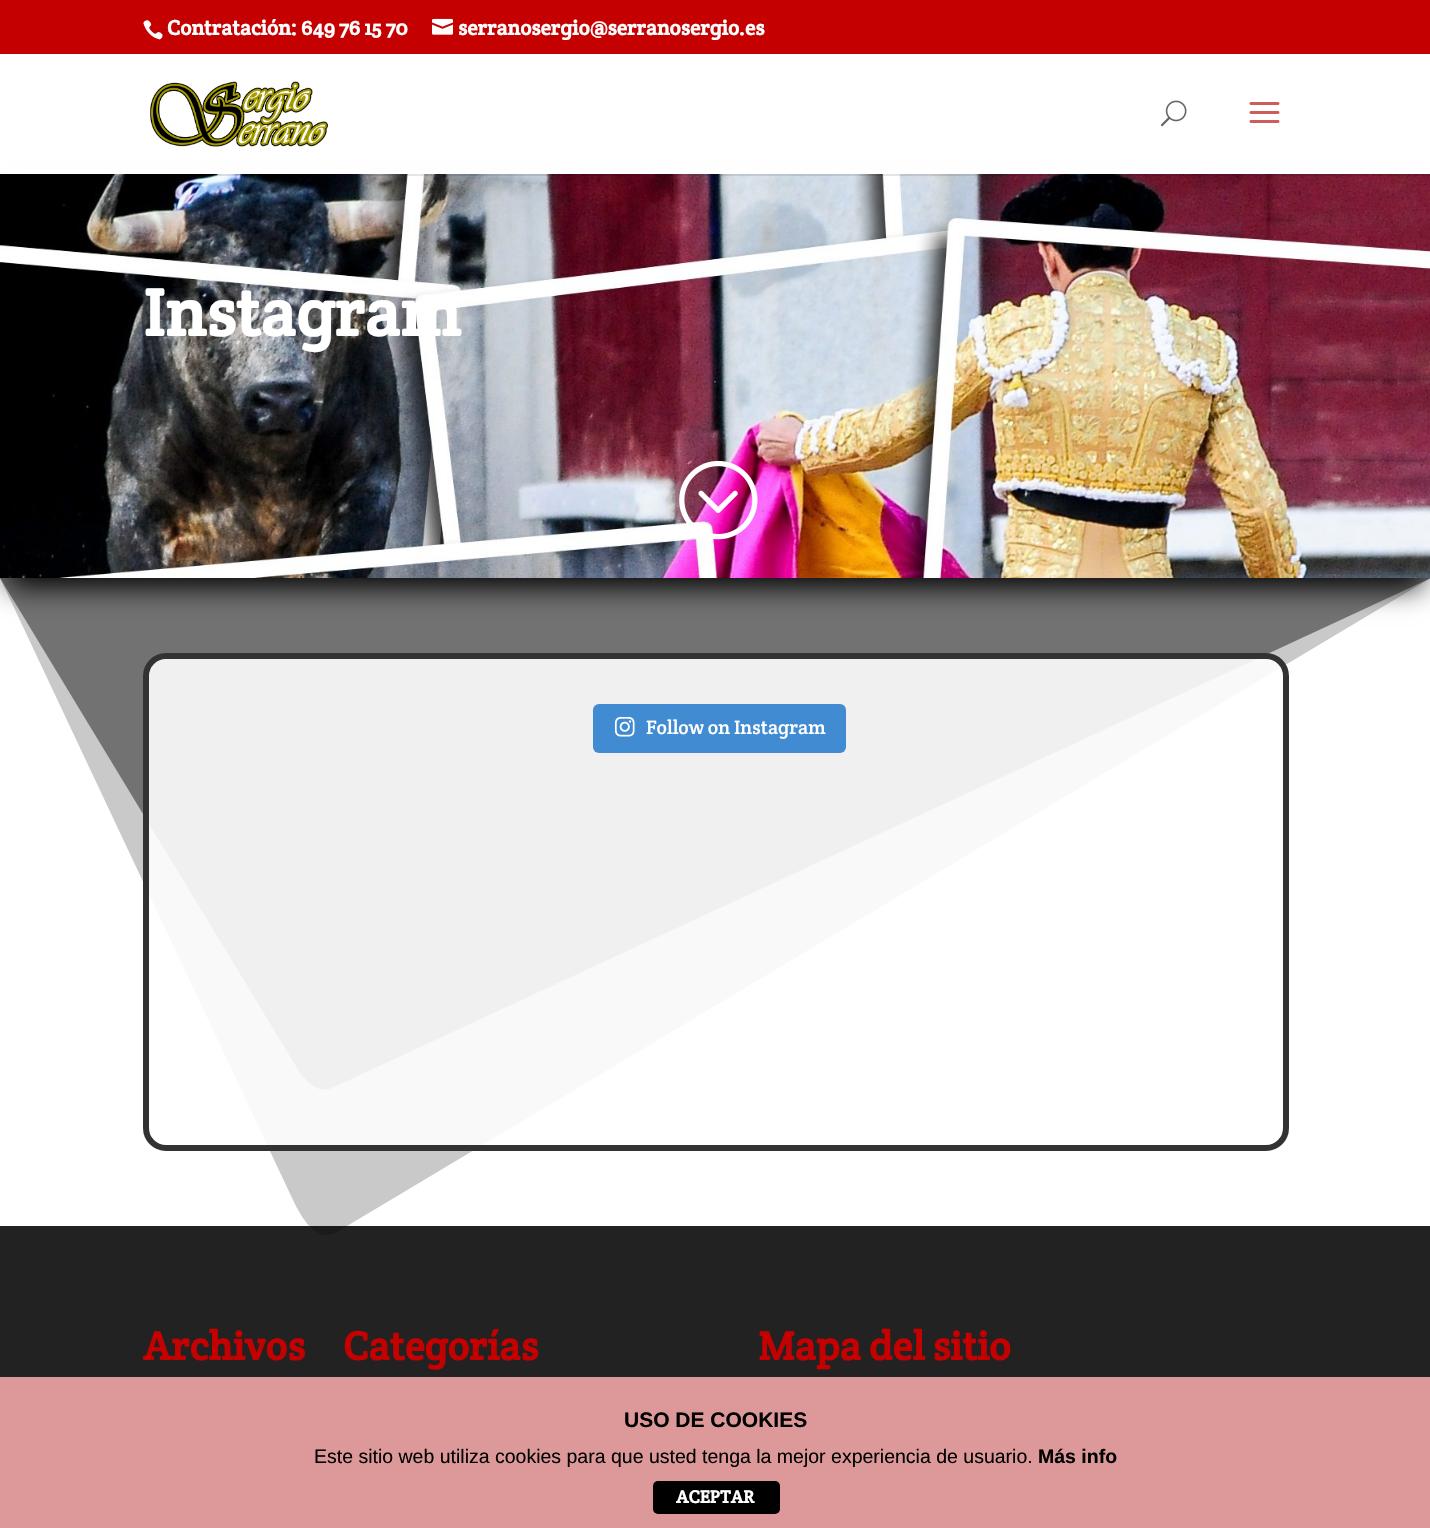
void draw(SkCanvas* canvas) {
    SkPaint paint;
    paint.setAntiAlias(true);
    canvas->clear(0xFFFFFFFF);
    paint.setColor(0xFFC40000);
    canvas->drawRect(SkRect::MakeXYWH(0, 0, 1430, 54), paint);
    canvas->drawImageRect(SkImages::DeferredFromEncodedData(SkData::MakeFromFileName("img1.png")), SkRect::MakeXYWH(143, 20, 20, 20), SkSamplingOptions());
    SkFont font1(fontMgr->matchFamilyStyle("Crete Round", SkFontStyle::Bold()), 21);
    font1.setSubpixel(true);
    paint.setColor(0xFFFFFFFF);
    canvas->drawString("Contratación: 649 76 15 70", 167, 35, font1, paint);
    canvas->drawImageRect(SkImages::DeferredFromEncodedData(SkData::MakeFromFileName("img2.png")), SkRect::MakeXYWH(432, 18, 21, 17), SkSamplingOptions());
    canvas->drawString("serranosergio@serranosergio.es", 458, 35, font1, paint);
    paint.setColor(0xFF222222);
    canvas->drawRect(SkRect::MakeXYWH(0, 1226, 1430, 151), paint);
    paint.setColor(0x36000000);
    canvas->drawPath(SkPathBuilder().moveTo(337, 1232).lineTo(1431, 578).lineTo(0, 578).lineTo(293, 1200).cubicTo(307, 1230, 322, 1241, 337, 1232).close().detach(), paint);
    paint.setColor(0x6E000000);
    canvas->drawPath(SkPathBuilder().moveTo(332, 1088).lineTo(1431, 578).lineTo(0, 578).lineTo(297, 1068).cubicTo(308, 1086, 320, 1093, 332, 1088).close().detach(), paint);
    paint.setColor(0xFF000000);
    paint.setMaskFilter(SkMaskFilter::MakeBlur(kNormal_SkBlurStyle, 13.5f));
    canvas->drawRect(SkRect::MakeXYWH(9, 200, 1413, 387), paint);
    paint.setMaskFilter(nullptr);
    canvas->drawImageRect(SkImages::DeferredFromEncodedData(SkData::MakeFromFileName("img6.png")), SkRect::MakeXYWH(0, 174, 1430, 404), SkSamplingOptions());
    paint.setColor(0x1A000000);
    canvas->drawRect(SkRect::MakeXYWH(113, 174, 1317, 2), paint);
    paint.setColor(0xFFFFFFFF);
    canvas->drawRect(SkRect::MakeXYWH(6, 169, 1419, 5), paint);
    canvas->drawImageRect(SkImages::DeferredFromEncodedData(SkData::MakeFromFileName("img3.png")), SkRect::MakeXYWH(150, 81, 178, 66), SkSamplingOptions());
    canvas->drawImageRect(SkImages::DeferredFromEncodedData(SkData::MakeFromFileName("img4.png")), SkRect::MakeXYWH(1160, 100, 27, 27), SkSamplingOptions());
    canvas->drawImageRect(SkImages::DeferredFromEncodedData(SkData::MakeFromFileName("img5.png")), SkRect::MakeXYWH(1249, 102, 31, 21), SkSamplingOptions());
    SkFont font2(fontMgr->matchFamilyStyle("Crete Round", SkFontStyle::Bold()), 67.5f);
    font2.setSubpixel(true);
    canvas->drawString("Instagram", 143, 336, font2, paint);
    canvas->drawImageRect(SkImages::DeferredFromEncodedData(SkData::MakeFromFileName("img7.png")), SkRect::MakeXYWH(679, 460, 79, 80), SkSamplingOptions());
    paint.setColor(0xE3FFFFFF);
    canvas->drawRoundRect(SkRect::MakeXYWH(146, 656, 1140, 492), 20, 20, paint);
    paint.setStyle(SkPaint::kStroke_Style);
    paint.setStrokeWidth(6);
    paint.setColor(0xFF333333);
    canvas->drawRoundRect(SkRect::MakeXYWH(146, 656, 1140, 492), 20, 20, paint);
    paint.setStyle(SkPaint::kFill_Style);
    paint.setColor(0xFF408BD1);
    canvas->drawRoundRect(SkRect::MakeXYWH(593, 704, 253, 49), 6, 6, paint);
    canvas->drawImageRect(SkImages::DeferredFromEncodedData(SkData::MakeFromFileName("img8.png")), SkRect::MakeXYWH(614, 717, 21, 20), SkSamplingOptions());
    SkFont font3(fontMgr->matchFamilyStyle("Crete Round", SkFontStyle::Normal()), 19.5f);
    font3.setSubpixel(true);
    paint.setColor(0xFFFFFFFF);
    canvas->drawString("Follow on Instagram", 646, 734, font3, paint);
    SkFont font4(fontMgr->matchFamilyStyle("Crete Round", SkFontStyle::Bold()), 40.5f);
    font4.setSubpixel(true);
    paint.setColor(0xFFC40000);
    canvas->drawString("Archivos", 143, 1360, font4, paint);
    canvas->drawString("Categorías", 343, 1360, font4, paint);
    canvas->drawString("Mapa del sitio", 758, 1360, font4, paint);
    paint.setColor(0xFFDD9999);
    canvas->drawRect(SkRect::MakeXYWH(0, 1377, 1430, 151), paint);
    SkFont font5(fontMgr->matchFamilyStyle("Liberation Sans", SkFontStyle::Bold()), 21);
    font5.setSubpixel(true);
    paint.setColor(0xFF000000);
    canvas->drawString("USO DE COOKIES", 624, 1427, font5, paint);
    SkFont font6(fontMgr->matchFamilyStyle("Liberation Sans", SkFontStyle::Normal()), 19.5f);
    font6.setSubpixel(true);
    canvas->drawString("Este sitio web utiliza cookies para que usted tenga la mejor experiencia de usuario.", 314, 1463, font6, paint);
    SkFont font7(fontMgr->matchFamilyStyle("Liberation Sans", SkFontStyle::Bold()), 19.5f);
    font7.setSubpixel(true);
    canvas->drawString("Más info", 1038, 1463, font7, paint);
    canvas->drawRoundRect(SkRect::MakeXYWH(653, 1481, 127, 33), 5, 5, paint);
    SkFont font8(fontMgr->matchFamilyStyle("Crete Round", SkFontStyle::Bold()), 18);
    font8.setSubpixel(true);
    paint.setColor(0xFFFFFFFF);
    canvas->drawString("ACEPTAR", 676, 1503, font8, paint);
}
